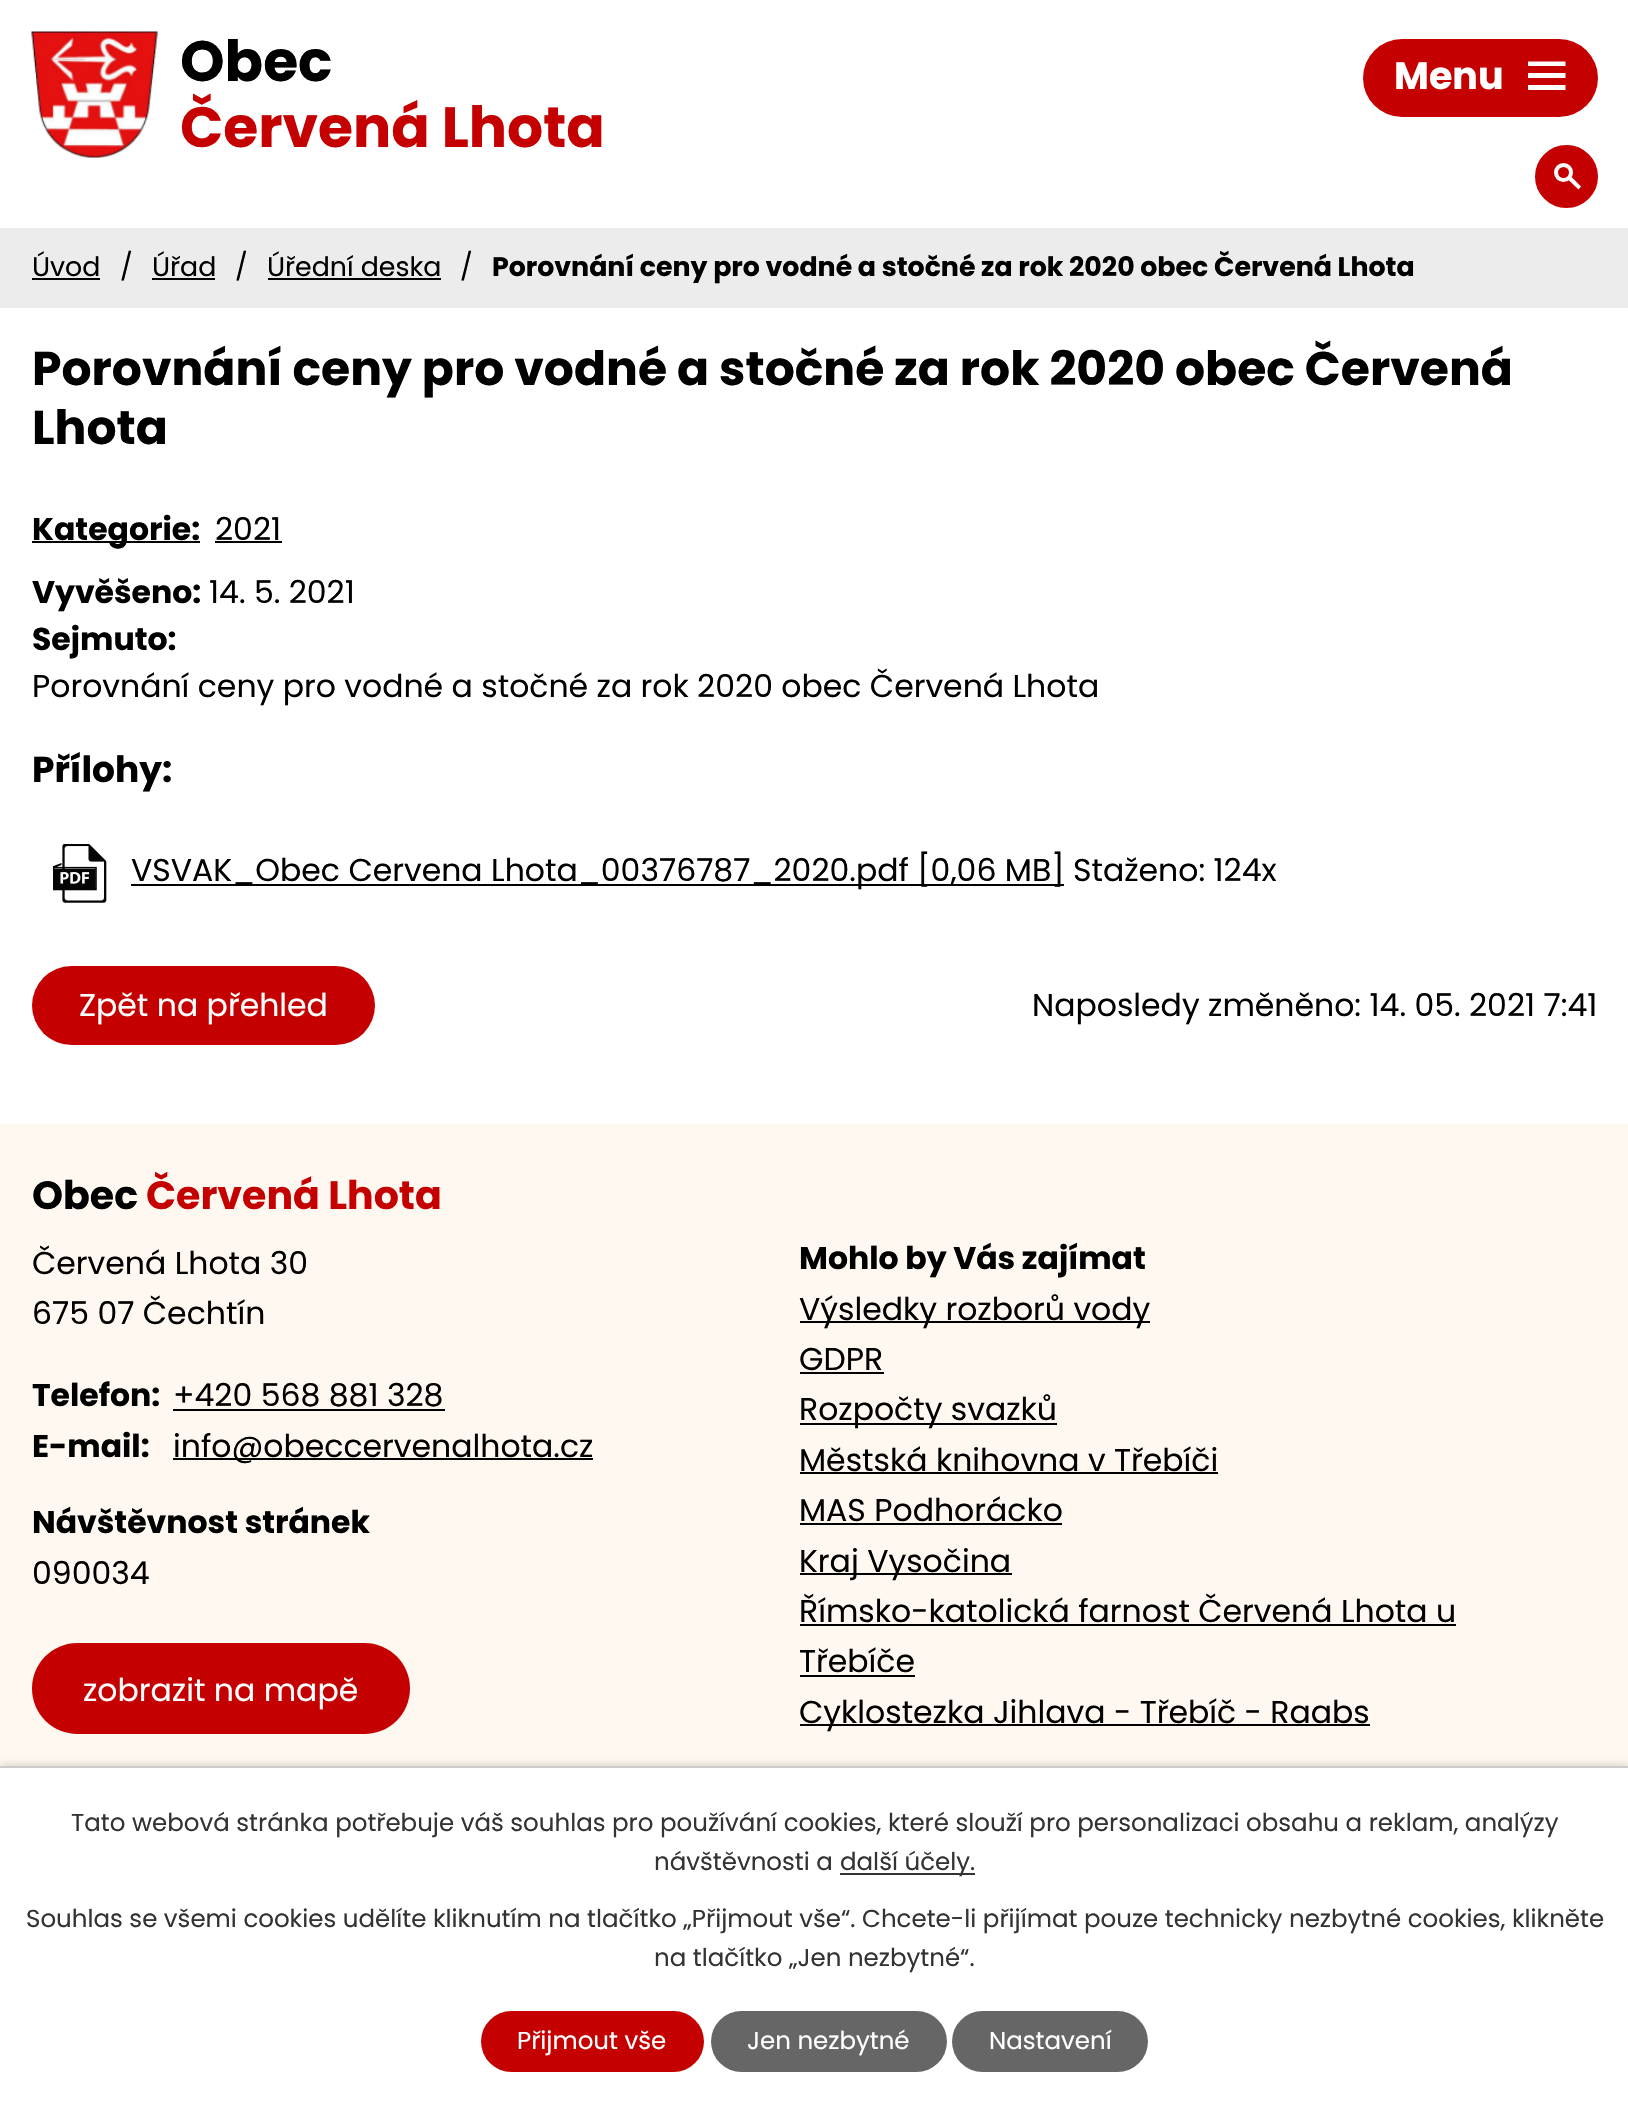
void draw(SkCanvas* canvas) {
    SkPaint paint;
    paint.setAntiAlias(true);
    canvas->clear(0xFFFFFFFF);
    canvas->drawImageRect(SkImages::DeferredFromEncodedData(SkData::MakeFromFileName("img1.png")), SkRect::MakeXYWH(31, 31, 127, 127), SkSamplingOptions());
    SkFont font1(fontMgr->matchFamilyStyle("Poppins", SkFontStyle::Bold()), 56.75f);
    font1.setSubpixel(true);
    paint.setColor(0xFF000000);
    canvas->drawString("Obec", 180, 81, font1, paint);
    paint.setColor(0xFFC40100);
    canvas->drawString("Červená Lhota", 180, 147, font1, paint);
    canvas->drawCircle(1566.5f, 176.5f, 30.5f, paint);
    paint.setStyle(SkPaint::kStroke_Style);
    paint.setStrokeWidth(2);
    canvas->drawCircle(1566.5f, 176.5f, 30.5f, paint);
    paint.setStrokeWidth(4);
    paint.setColor(0xFFFFFFFF);
    canvas->drawCircle(1563.5f, 172.5f, 7.5f, paint);
    paint.setStyle(SkPaint::kFill_Style);
    canvas->drawPath(SkPathBuilder().moveTo(1571, 176.5f).lineTo(1581, 186.5f).lineTo(1578.5f, 189.5f).lineTo(1568, 179.5f).close().detach(), paint);
    paint.setColor(0xFFC40100);
    canvas->drawRoundRect(SkRect::MakeXYWH(1363, 39, 235, 78), 39, 39, paint);
    SkFont font2(fontMgr->matchFamilyStyle("Poppins", SkFontStyle::Bold()), 38);
    font2.setSubpixel(true);
    paint.setColor(0xFFFFFFFF);
    canvas->drawString("Menu", 1394, 89, font2, paint);
    canvas->drawPath(SkPathBuilder().moveTo(1528, 90).lineTo(1528, 85).lineTo(1565.5f, 85).lineTo(1565.5f, 90).close().moveTo(1528, 61.5f).lineTo(1565.5f, 61.5f).lineTo(1565.5f, 66).lineTo(1528, 66).close().moveTo(1528, 78).lineTo(1528, 73).lineTo(1565.5f, 73).lineTo(1565.5f, 78).close().detach(), paint);
    paint.setColor(0xFFECECEC);
    canvas->drawRect(SkRect::MakeXYWH(0, 228, 1628, 80), paint);
    SkFont font3(fontMgr->matchFamilyStyle("Poppins", SkFontStyle::Normal()), 26.8f);
    font3.setSubpixel(true);
    paint.setColor(0xFF000000);
    canvas->drawString("Úvod", 32, 276, font3, paint);
    canvas->drawRect(SkRect::MakeXYWH(32, 278, 68, 2), paint);
    canvas->drawString("/", 120, 276, font3, paint);
    canvas->drawString("Úřad", 152, 276, font3, paint);
    canvas->drawRect(SkRect::MakeXYWH(152, 278, 63, 2), paint);
    canvas->drawString("/", 235, 276, font3, paint);
    canvas->drawString("Úřední deska", 267, 276, font3, paint);
    canvas->drawRect(SkRect::MakeXYWH(268, 278, 173, 2), paint);
    canvas->drawString("/", 460, 276, font3, paint);
    SkFont font4(fontMgr->matchFamilyStyle("Poppins", SkFontStyle::Bold()), 26.8f);
    font4.setSubpixel(true);
    canvas->drawString("Porovnání ceny pro vodné a stočné za rok 2020 obec Červená Lhota", 492, 276, font4, paint);
    SkFont font5(fontMgr->matchFamilyStyle("Poppins", SkFontStyle::Bold()), 47.25f);
    font5.setSubpixel(true);
    canvas->drawString("Porovnání ceny pro vodné a stočné za rok 2020 obec Červená", 32, 385, font5, paint);
    canvas->drawString("Lhota", 32, 444, font5, paint);
    canvas->drawRect(SkRect::MakeXYWH(32, 541, 168, 2), paint);
    SkFont font6(fontMgr->matchFamilyStyle("Poppins", SkFontStyle::Bold()), 31.5f);
    font6.setSubpixel(true);
    canvas->drawString("Kategorie:", 32, 540, font6, paint);
    SkFont font7(fontMgr->matchFamilyStyle("Poppins", SkFontStyle::Normal()), 31.5f);
    font7.setSubpixel(true);
    canvas->drawString("2021", 215, 540, font7, paint);
    canvas->drawRect(SkRect::MakeXYWH(215, 541, 67, 2), paint);
    canvas->drawString("Vyvěšeno:", 32, 603, font6, paint);
    canvas->drawString("14. 5. 2021", 209, 603, font7, paint);
    canvas->drawString("Sejmuto:", 32, 650, font6, paint);
    canvas->drawString("Porovnání ceny pro vodné a stočné za rok 2020 obec Červená Lhota", 32, 697, font7, paint);
    SkFont font8(fontMgr->matchFamilyStyle("Poppins", SkFontStyle::Bold()), 36);
    font8.setSubpixel(true);
    canvas->drawString("Přílohy:", 32, 782, font8, paint);
    canvas->drawImageRect(SkImages::DeferredFromEncodedData(SkData::MakeFromFileName("img2.png")), SkRect::MakeXYWH(53, 844, 54, 59), SkSamplingOptions());
    canvas->drawRect(SkRect::MakeXYWH(131, 884, 933, 2), paint);
    canvas->drawString("VSVAK_Obec Cervena Lhota_00376787_2020.pdf [0,06 MB] Staženo: 124x", 131, 881, font7, paint);
    paint.setColor(0xFFC40100);
    canvas->drawRoundRect(SkRect::MakeXYWH(32, 966, 343, 79), 39.5f, 39.5f, paint);
    paint.setColor(0xFFFFFFFF);
    canvas->drawString("Zpět na přehled", 79, 1016, font7, paint);
    paint.setColor(0xFF000000);
    canvas->drawString("Naposledy změněno: 14. 05. 2021 7:41", 1032, 1016, font7, paint);
    paint.setColor(0xFFFFF8F0);
    canvas->drawRect(SkRect::MakeXYWH(0, 1124, 1628, 642), paint);
    SkFont font9(fontMgr->matchFamilyStyle("Poppins", SkFontStyle::Bold()), 39.5f);
    font9.setSubpixel(true);
    paint.setColor(0xFF000000);
    canvas->drawString("Obec", 32, 1209, font9, paint);
    paint.setColor(0xFFC40100);
    canvas->drawString("Červená Lhota", 146, 1209, font9, paint);
    paint.setColor(0xFF000000);
    canvas->drawString("Červená Lhota 30", 32, 1274, font7, paint);
    canvas->drawString("675 07 Čechtín", 32, 1324, font7, paint);
    canvas->drawString("Telefon:", 32, 1406, font6, paint);
    canvas->drawString("+420 568 881 328", 173, 1406, font7, paint);
    canvas->drawRect(SkRect::MakeXYWH(173, 1409, 272, 2), paint);
    canvas->drawString("E-mail:", 32, 1457, font6, paint);
    canvas->drawRect(SkRect::MakeXYWH(173, 1458, 420, 2), paint);
    canvas->drawString("info@obeccervenalhota.cz", 173, 1457, font7, paint);
    canvas->drawString("Návštěvnost stránek", 32, 1533, font6, paint);
    canvas->drawString("090034", 32, 1584, font7, paint);
    canvas->drawString("Mohlo by Vás zajímat", 799, 1269, font6, paint);
    canvas->drawRect(SkRect::MakeXYWH(800, 1321, 350, 2), paint);
    canvas->drawString("Výsledky rozborů vody", 799, 1320, font7, paint);
    canvas->drawString("GDPR", 799, 1370, font7, paint);
    canvas->drawRect(SkRect::MakeXYWH(800, 1372, 84, 2), paint);
    canvas->drawRect(SkRect::MakeXYWH(800, 1423, 257, 2), paint);
    canvas->drawString("Rozpočty svazků", 799, 1420, font7, paint);
    canvas->drawString("Městská knihovna v Třebíči", 799, 1471, font7, paint);
    canvas->drawRect(SkRect::MakeXYWH(800, 1472, 418, 2), paint);
    canvas->drawString("MAS Podhorácko", 799, 1521, font7, paint);
    canvas->drawRect(SkRect::MakeXYWH(800, 1523, 262, 2), paint);
    canvas->drawRect(SkRect::MakeXYWH(800, 1573, 212, 2), paint);
    canvas->drawString("Kraj Vysočina", 799, 1572, font7, paint);
    canvas->drawString("Římsko-katolická farnost Červená Lhota u", 799, 1622, font7, paint);
    canvas->drawRect(SkRect::MakeXYWH(800, 1624, 656, 2), paint);
    canvas->drawString("Třebíče", 799, 1672, font7, paint);
    canvas->drawRect(SkRect::MakeXYWH(800, 1675, 115, 2), paint);
    canvas->drawRect(SkRect::MakeXYWH(800, 1724, 570, 2), paint);
    canvas->drawString("Cyklostezka Jihlava - Třebíč - Raabs", 799, 1723, font7, paint);
    paint.setColor(0xFFC40100);
    canvas->drawRoundRect(SkRect::MakeXYWH(32, 1643, 378, 91), 45.5f, 45.5f, paint);
    paint.setColor(0xFFFFFFFF);
    canvas->drawString("zobrazit na mapě", 83, 1701, font7, paint);
    paint.setColor(0x33000000);
    paint.setMaskFilter(SkMaskFilter::MakeBlur(kNormal_SkBlurStyle, 4.5f));
    canvas->drawRect(SkRect::MakeXYWH(0, 1766, 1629, 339), paint);
    paint.setMaskFilter(nullptr);
    paint.setColor(0xFFFFFFFF);
    canvas->drawRect(SkRect::MakeXYWH(0, 1768, 1628, 336), paint);
    paint.setColor(0xFFCCCCCC);
    canvas->drawRect(SkRect::MakeXYWH(0, 1766, 1628, 2), paint);
    SkFont font10(fontMgr->matchFamilyStyle("Poppins", SkFontStyle::Normal()), 24.5f);
    font10.setSubpixel(true);
    paint.setColor(0xFF333333);
    canvas->drawString("Tato webová stránka potřebuje váš souhlas pro používání cookies, které slouží pro personalizaci obsahu a reklam, analýzy", 71, 1831, font10, paint);
    canvas->drawString("návštěvnosti a", 654, 1870, font10, paint);
    canvas->drawRect(SkRect::MakeXYWH(840, 1873, 135, 2), paint);
    canvas->drawString("další účely.", 840, 1870, font10, paint);
    canvas->drawString("Souhlas se všemi cookies udělíte kliknutím na tlačítko „Přijmout vše“. Chcete-li přijímat pouze technicky nezbytné cookies, klikněte", 26, 1927, font10, paint);
    canvas->drawString("na tlačítko „Jen nezbytné“.", 654, 1966, font10, paint);
    paint.setColor(0xFFC40100);
    canvas->drawRoundRect(SkRect::MakeXYWH(481, 2011, 223, 61), 30.5f, 30.5f, paint);
    paint.setColor(0xFFFFFFFF);
    canvas->drawString("Přijmout vše", 517, 2049, font10, paint);
    paint.setColor(0xFF666666);
    canvas->drawRoundRect(SkRect::MakeXYWH(711, 2011, 236, 61), 30.5f, 30.5f, paint);
    paint.setColor(0xFFFFFFFF);
    canvas->drawString("Jen nezbytné", 747, 2049, font10, paint);
    paint.setColor(0xFF666666);
    canvas->drawRoundRect(SkRect::MakeXYWH(952, 2011, 196, 61), 30.5f, 30.5f, paint);
    paint.setColor(0xFFFFFFFF);
    canvas->drawString("Nastavení", 989, 2049, font10, paint);
}
